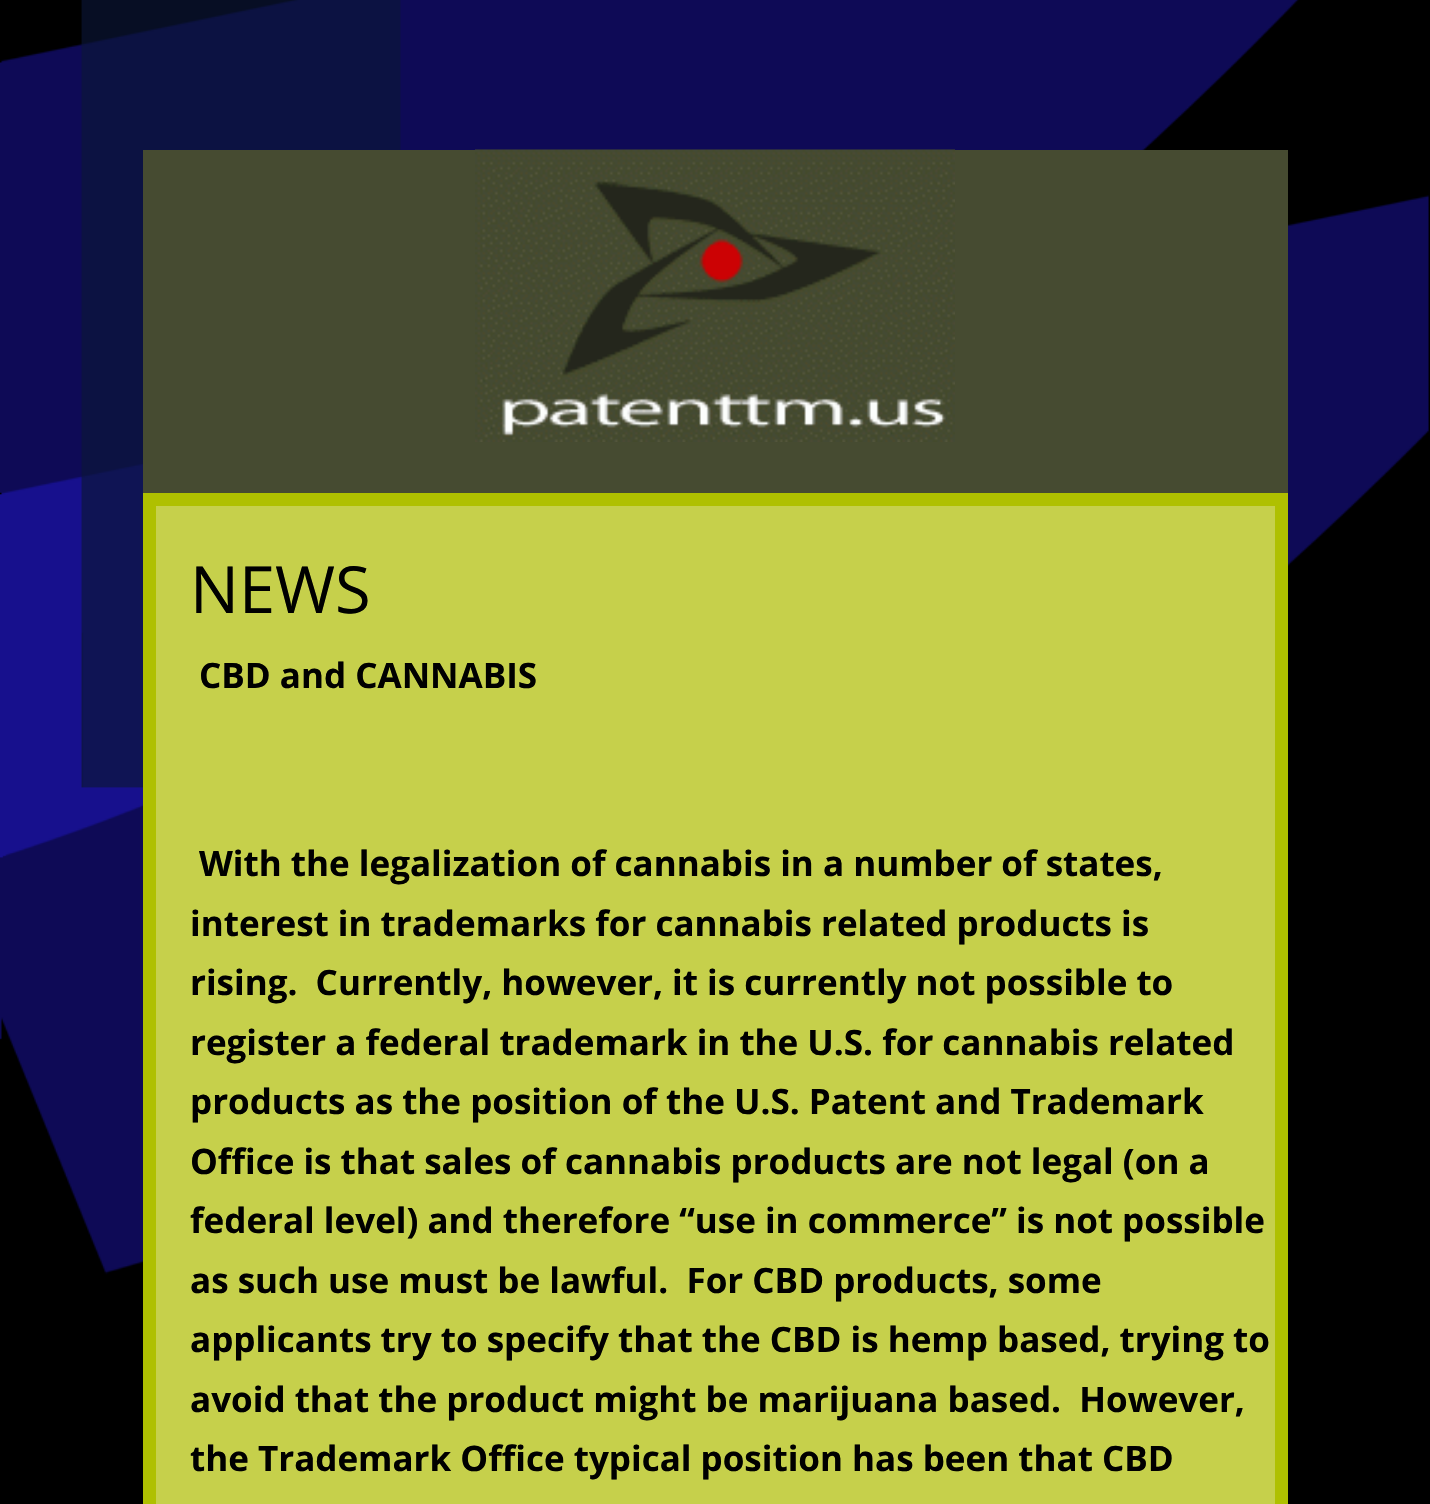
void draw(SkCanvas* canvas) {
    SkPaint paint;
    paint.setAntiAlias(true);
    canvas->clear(0xFFFFFFFF);
    canvas->drawImageRect(SkImages::DeferredFromEncodedData(SkData::MakeFromFileName("img1.png")), SkRect::MakeXYWH(0, 0, 1430, 1504), SkSamplingOptions());
    paint.setColor(0xFF464B31);
    canvas->drawRect(SkRect::MakeXYWH(143, 150, 1145, 343), paint);
    canvas->drawImageRect(SkImages::DeferredFromEncodedData(SkData::MakeFromFileName("img2.png")), SkRect::MakeXYWH(475, 149, 480, 293), SkSamplingOptions());
    paint.setColor(0xFFC6D04B);
    canvas->drawRect(SkRect::MakeXYWH(149.5f, 499.5f, 1132, 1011), paint);
    paint.setStyle(SkPaint::kStroke_Style);
    paint.setStrokeWidth(13);
    paint.setColor(0xFFAFC000);
    canvas->drawRect(SkRect::MakeXYWH(149.5f, 499.5f, 1132, 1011), paint);
    SkFont font1(fontMgr->matchFamilyStyle("Open Sans", SkFontStyle::Normal()), 65);
    font1.setSubpixel(true);
    paint.setStyle(SkPaint::kFill_Style);
    paint.setColor(0xFF000000);
    canvas->drawString("NEWS", 190, 613, font1, paint);
    SkFont font2(fontMgr->matchFamilyStyle("Open Sans", SkFontStyle::Bold()), 35);
    font2.setSubpixel(true);
    canvas->drawString("CBD and CANNABIS", 199, 688, font2, paint);
    canvas->drawString("With the legalization of cannabis in a number of states,", 199, 876, font2, paint);
    canvas->drawString("interest in trademarks for cannabis related products is", 190, 936, font2, paint);
    canvas->drawString("rising.  Currently, however, it is currently not possible to", 190, 995, font2, paint);
    canvas->drawString("register a federal trademark in the U.S. for cannabis related", 190, 1055, font2, paint);
    canvas->drawString("products as the position of the U.S. Patent and Trademark", 190, 1114, font2, paint);
    canvas->drawString("Office is that sales of cannabis products are not legal (on a", 190, 1174, font2, paint);
    canvas->drawString("federal level) and therefore “use in commerce” is not possible", 190, 1233, font2, paint);
    canvas->drawString("as such use must be lawful.  For CBD products, some", 190, 1293, font2, paint);
    canvas->drawString("applicants try to specify that the CBD is hemp based, trying to", 190, 1352, font2, paint);
    canvas->drawString("avoid that the product might be marijuana based.  However,", 190, 1412, font2, paint);
    canvas->drawString("the Trademark Office typical position has been that CBD", 190, 1471, font2, paint);
}
